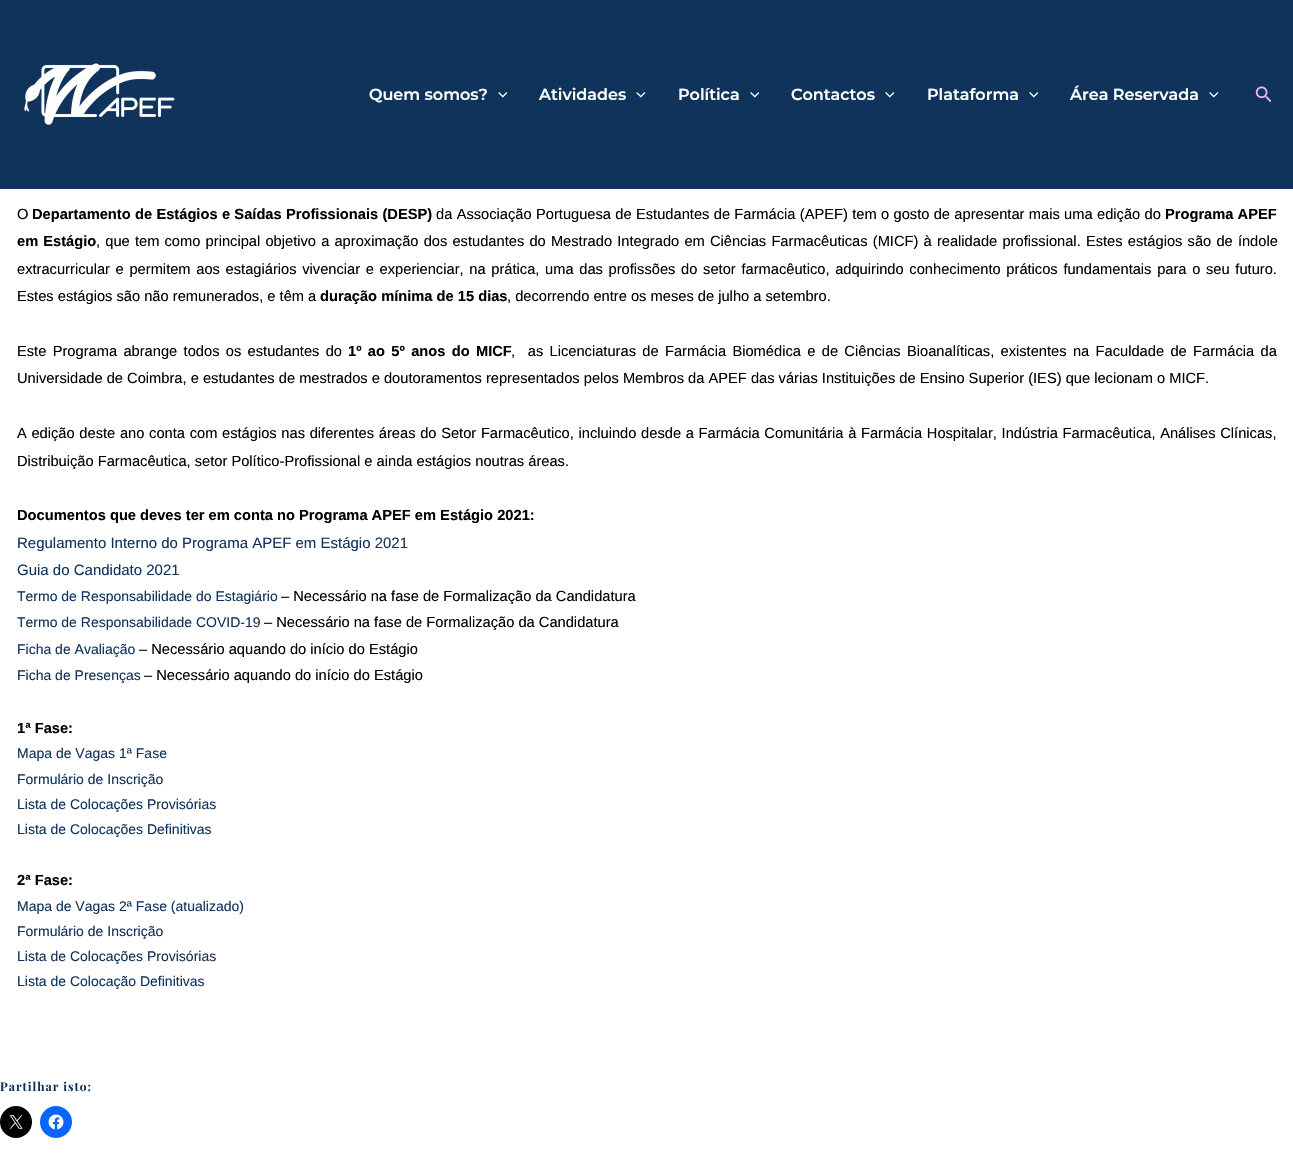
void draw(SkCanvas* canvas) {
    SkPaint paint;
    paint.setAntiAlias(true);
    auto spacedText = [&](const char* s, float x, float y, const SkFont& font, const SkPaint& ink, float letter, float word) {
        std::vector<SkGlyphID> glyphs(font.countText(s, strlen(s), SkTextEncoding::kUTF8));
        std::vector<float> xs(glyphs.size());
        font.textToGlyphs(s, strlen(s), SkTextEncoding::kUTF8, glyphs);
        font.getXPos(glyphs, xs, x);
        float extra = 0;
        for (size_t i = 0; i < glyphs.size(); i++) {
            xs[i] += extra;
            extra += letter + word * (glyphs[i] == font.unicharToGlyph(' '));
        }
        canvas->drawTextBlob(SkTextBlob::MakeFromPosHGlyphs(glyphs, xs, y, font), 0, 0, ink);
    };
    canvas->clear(0xFFFFFFFF);
    paint.setColor(0xFF10335B);
    canvas->drawRect(SkRect::MakeXYWH(0, 0, 1293, 189), paint);
    canvas->drawImageRect(SkImages::DeferredFromEncodedData(SkData::MakeFromFileName("img1.png")), SkRect::MakeXYWH(24, 63, 151, 62), SkSamplingOptions());
    SkFont font1(fontMgr->matchFamilyStyle("Montserrat", SkFontStyle(600, SkFontStyle::kNormal_Width, SkFontStyle::kUpright_Slant)), 16);
    font1.setSubpixel(true);
    paint.setColor(0xFFFFFFFF);
    canvas->drawString("Quem somos?", 369, 100, font1, paint);
    canvas->drawImageRect(SkImages::DeferredFromEncodedData(SkData::MakeFromFileName("img2.png")), SkRect::MakeXYWH(498, 92, 9, 6), SkSamplingOptions());
    canvas->drawString("Atividades", 539, 100, font1, paint);
    canvas->drawImageRect(SkImages::DeferredFromEncodedData(SkData::MakeFromFileName("img3.png")), SkRect::MakeXYWH(636, 92, 10, 6), SkSamplingOptions());
    canvas->drawString("Política", 678, 100, font1, paint);
    canvas->drawImageRect(SkImages::DeferredFromEncodedData(SkData::MakeFromFileName("img2.png")), SkRect::MakeXYWH(750, 92, 9, 6), SkSamplingOptions());
    canvas->drawString("Contactos", 791, 100, font1, paint);
    canvas->drawImageRect(SkImages::DeferredFromEncodedData(SkData::MakeFromFileName("img3.png")), SkRect::MakeXYWH(885, 92, 10, 6), SkSamplingOptions());
    canvas->drawString("Plataforma", 927, 100, font1, paint);
    canvas->drawImageRect(SkImages::DeferredFromEncodedData(SkData::MakeFromFileName("img2.png")), SkRect::MakeXYWH(1029, 92, 9, 6), SkSamplingOptions());
    canvas->drawString("Área Reservada", 1070, 100, font1, paint);
    canvas->drawImageRect(SkImages::DeferredFromEncodedData(SkData::MakeFromFileName("img3.png")), SkRect::MakeXYWH(1209, 92, 10, 6), SkSamplingOptions());
    canvas->drawImageRect(SkImages::DeferredFromEncodedData(SkData::MakeFromFileName("img4.png")), SkRect::MakeXYWH(1255, 86, 16, 17), SkSamplingOptions());
    SkFont font2(fontMgr->matchFamilyStyle("Liberation Sans", SkFontStyle::Normal()), 14.67f);
    font2.setSubpixel(true);
    paint.setColor(0xFF000000);
    canvas->drawString("O", 17, 219, font2, paint);
    SkFont font3(fontMgr->matchFamilyStyle("Liberation Sans", SkFontStyle::Bold()), 14.67f);
    font3.setSubpixel(true);
    spacedText("Departamento de Estágios e Saídas Profissionais (DESP)", 32, 219, font3, paint, 0, 0.25f);
    spacedText("da Associação Portuguesa de Estudantes de Farmácia (APEF) tem o gosto de apresentar mais uma edição do", 436, 219, font2, paint, 0, 0.25f);
    canvas->drawString("Programa APEF", 1165, 219, font3, paint);
    spacedText("em Estágio", 17, 246, font3, paint, 0, 1);
    spacedText(", que tem como principal objetivo a aproximação dos estudantes do Mestrado Integrado em Ciências Farmacêuticas (MICF) à realidade profissional. Estes estágios são de índole", 96, 246, font2, paint, 0, 1.1f);
    spacedText("extracurricular e permitem aos estagiários vivenciar e experienciar, na prática, uma das profissões do setor farmacêutico, adquirindo conhecimento práticos fundamentais para o seu futuro.", 17, 274, font2, paint, 0, 1.6f);
    canvas->drawString("Estes estágios são não remunerados, e têm a", 17, 301, font2, paint);
    canvas->drawString("duração mínima de 15 dias", 320, 301, font3, paint);
    canvas->drawString(", decorrendo entre os meses de julho a setembro.", 507, 301, font2, paint);
    spacedText("Este Programa abrange todos os estudantes do", 17, 356, font2, paint, 0, 2.25f);
    spacedText("1º ao 5º anos do MICF", 348, 356, font3, paint, 0, 2.25f);
    spacedText(",  as Licenciaturas de Farmácia Biomédica e de Ciências Bioanalíticas, existentes na Faculdade de Farmácia da", 511, 356, font2, paint, 0, 2.25f);
    canvas->drawString("Universidade de Coimbra, e estudantes de mestrados e doutoramentos representados pelos Membros da APEF das várias Instituições de Ensino Superior (IES) que lecionam o MICF.", 17, 383, font2, paint);
    spacedText("A edição deste ano conta com estágios nas diferentes áreas do Setor Farmacêutico, incluindo desde a Farmácia Comunitária à Farmácia Hospitalar, Indústria Farmacêutica, Análises Clínicas,", 17, 438, font2, paint, 0, 0.6f);
    canvas->drawString("Distribuição Farmacêutica, setor Político-Profissional e ainda estágios noutras áreas.", 17, 466, font2, paint);
    canvas->drawString("Documentos que deves ter em conta no Programa APEF em Estágio 2021:", 17, 520, font3, paint);
    SkFont font4(fontMgr->matchFamilyStyle("Liberation Sans", SkFontStyle::Normal()), 15);
    font4.setSubpixel(true);
    paint.setColor(0xFF10335B);
    canvas->drawString("Regulamento Interno do Programa APEF em Estágio 2021", 17, 548, font4, paint);
    canvas->drawString("Guia do Candidato 2021", 17, 575, font4, paint);
    SkFont font5(fontMgr->matchFamilyStyle("Liberation Sans", SkFontStyle::Normal()), 14);
    font5.setSubpixel(true);
    canvas->drawString("Termo de Responsabilidade do Estagiário", 17, 601, font5, paint);
    paint.setColor(0xFF000000);
    canvas->drawString("– Necessário na fase de Formalização da Candidatura", 281, 601, font2, paint);
    paint.setColor(0xFF10335B);
    canvas->drawString("Termo de Responsabilidade COVID-19", 17, 627, font5, paint);
    paint.setColor(0xFF000000);
    canvas->drawString("– Necessário na fase de Formalização da Candidatura", 264, 627, font2, paint);
    paint.setColor(0xFF10335B);
    canvas->drawString("Ficha de Avaliação", 17, 654, font5, paint);
    paint.setColor(0xFF000000);
    canvas->drawString("– Necessário aquando do início do Estágio", 139, 654, font2, paint);
    paint.setColor(0xFF10335B);
    canvas->drawString("Ficha de Presenças", 17, 680, font5, paint);
    paint.setColor(0xFF000000);
    canvas->drawString("– Necessário aquando do início do Estágio", 144, 680, font2, paint);
    canvas->drawString("1ª Fase:", 17, 733, font3, paint);
    paint.setColor(0xFF10335B);
    canvas->drawString("Mapa de Vagas 1ª Fase", 17, 758, font5, paint);
    canvas->drawString("Formulário de Inscrição", 17, 784, font5, paint);
    canvas->drawString("Lista de Colocações Provisórias", 17, 809, font5, paint);
    canvas->drawString("Lista de Colocações Definitivas", 17, 834, font5, paint);
    paint.setColor(0xFF000000);
    canvas->drawString("2ª Fase:", 17, 885, font3, paint);
    paint.setColor(0xFF10335B);
    canvas->drawString("Mapa de Vagas 2ª Fase (atualizado)", 17, 911, font5, paint);
    canvas->drawString("Formulário de Inscrição", 17, 936, font5, paint);
    canvas->drawString("Lista de Colocações Provisórias", 17, 961, font5, paint);
    canvas->drawString("Lista de Colocação Definitivas", 17, 986, font5, paint);
    SkFont font6(fontMgr->matchFamilyStyle("Playfair Display", SkFontStyle::Bold()), 12);
    font6.setSubpixel(true);
    spacedText("Partilhar isto:", 0, 1091, font6, paint, 1, 0);
    paint.setColor(0xFF000000);
    canvas->drawCircle(16, 1122, 16, paint);
    canvas->drawImageRect(SkImages::DeferredFromEncodedData(SkData::MakeFromFileName("img5.png")), SkRect::MakeXYWH(9, 1115, 14, 14), SkSamplingOptions());
    paint.setColor(0xFF0866FF);
    canvas->drawCircle(56, 1122, 16, paint);
    canvas->drawImageRect(SkImages::DeferredFromEncodedData(SkData::MakeFromFileName("img6.png")), SkRect::MakeXYWH(48, 1114, 16, 16), SkSamplingOptions());
}
